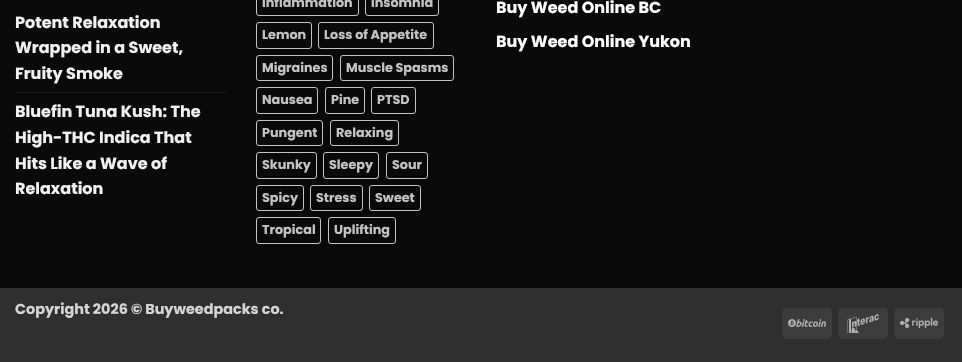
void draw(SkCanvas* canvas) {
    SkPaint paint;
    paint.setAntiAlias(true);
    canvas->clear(0xFF0A0A0A);
    SkFont font1(fontMgr->matchFamilyStyle("Poppins", SkFontStyle::Bold()), 16);
    font1.setSubpixel(true);
    paint.setColor(0xFFF1F1F1);
    canvas->drawString("Potent Relaxation", 15, 28, font1, paint);
    canvas->drawString("Wrapped in a Sweet,", 15, 53, font1, paint);
    canvas->drawString("Fruity Smoke", 15, 79, font1, paint);
    paint.setColor(0xFF1E1E1E);
    canvas->drawRect(SkRect::MakeXYWH(15, 92, 211, 1), paint);
    paint.setColor(0xFFF1F1F1);
    canvas->drawString("Bluefin Tuna Kush: The", 15, 117, font1, paint);
    canvas->drawString("High-THC Indica That", 15, 143, font1, paint);
    canvas->drawString("Hits Like a Wave of", 15, 169, font1, paint);
    canvas->drawString("Relaxation", 15, 194, font1, paint);
    paint.setStyle(SkPaint::kStroke_Style);
    paint.setStrokeWidth(1);
    paint.setColor(0xFFC3C3C3);
    canvas->drawRoundRect(SkRect::MakeXYWH(256.5f, -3.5f, 102, 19), 2.5f, 2.5f, paint);
    SkFont font2(fontMgr->matchFamilyStyle("Poppins", SkFontStyle::Bold()), 12.75f);
    font2.setSubpixel(true);
    paint.setStyle(SkPaint::kFill_Style);
    canvas->drawString("Inflammation", 262, 7, font2, paint);
    paint.setStyle(SkPaint::kStroke_Style);
    canvas->drawRoundRect(SkRect::MakeXYWH(365.5f, -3.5f, 73, 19), 2.5f, 2.5f, paint);
    paint.setStyle(SkPaint::kFill_Style);
    canvas->drawString("Insomnia", 371, 7, font2, paint);
    paint.setStyle(SkPaint::kStroke_Style);
    canvas->drawRoundRect(SkRect::MakeXYWH(256.5f, 22.5f, 55, 26), 2.5f, 2.5f, paint);
    paint.setStyle(SkPaint::kFill_Style);
    canvas->drawString("Lemon", 262, 39, font2, paint);
    paint.setStyle(SkPaint::kStroke_Style);
    canvas->drawRoundRect(SkRect::MakeXYWH(318.5f, 22.5f, 115, 26), 2.5f, 2.5f, paint);
    paint.setStyle(SkPaint::kFill_Style);
    canvas->drawString("Loss of Appetite", 324, 39, font2, paint);
    paint.setStyle(SkPaint::kStroke_Style);
    canvas->drawRoundRect(SkRect::MakeXYWH(256.5f, 55.5f, 76, 25), 2.5f, 2.5f, paint);
    paint.setStyle(SkPaint::kFill_Style);
    canvas->drawString("Migraines", 262, 72, font2, paint);
    paint.setStyle(SkPaint::kStroke_Style);
    canvas->drawRoundRect(SkRect::MakeXYWH(340.5f, 55.5f, 113, 25), 2.5f, 2.5f, paint);
    paint.setStyle(SkPaint::kFill_Style);
    canvas->drawString("Muscle Spasms", 346, 72, font2, paint);
    paint.setStyle(SkPaint::kStroke_Style);
    canvas->drawRoundRect(SkRect::MakeXYWH(256.5f, 87.5f, 61, 26), 2.5f, 2.5f, paint);
    paint.setStyle(SkPaint::kFill_Style);
    canvas->drawString("Nausea", 262, 104, font2, paint);
    paint.setStyle(SkPaint::kStroke_Style);
    canvas->drawRoundRect(SkRect::MakeXYWH(325.5f, 87.5f, 39, 26), 2.5f, 2.5f, paint);
    paint.setStyle(SkPaint::kFill_Style);
    canvas->drawString("Pine", 331, 104, font2, paint);
    paint.setStyle(SkPaint::kStroke_Style);
    canvas->drawRoundRect(SkRect::MakeXYWH(371.5f, 87.5f, 44, 26), 2.5f, 2.5f, paint);
    paint.setStyle(SkPaint::kFill_Style);
    canvas->drawString("PTSD", 377, 104, font2, paint);
    paint.setStyle(SkPaint::kStroke_Style);
    canvas->drawRoundRect(SkRect::MakeXYWH(256.5f, 120.5f, 66, 25), 2.5f, 2.5f, paint);
    paint.setStyle(SkPaint::kFill_Style);
    canvas->drawString("Pungent", 262, 137, font2, paint);
    paint.setStyle(SkPaint::kStroke_Style);
    canvas->drawRoundRect(SkRect::MakeXYWH(330.5f, 120.5f, 68, 25), 2.5f, 2.5f, paint);
    paint.setStyle(SkPaint::kFill_Style);
    canvas->drawString("Relaxing", 336, 137, font2, paint);
    paint.setStyle(SkPaint::kStroke_Style);
    canvas->drawRoundRect(SkRect::MakeXYWH(256.5f, 152.5f, 60, 26), 2.5f, 2.5f, paint);
    paint.setStyle(SkPaint::kFill_Style);
    canvas->drawString("Skunky", 262, 169, font2, paint);
    paint.setStyle(SkPaint::kStroke_Style);
    canvas->drawRoundRect(SkRect::MakeXYWH(323.5f, 152.5f, 55, 26), 2.5f, 2.5f, paint);
    paint.setStyle(SkPaint::kFill_Style);
    canvas->drawString("Sleepy", 329, 169, font2, paint);
    paint.setStyle(SkPaint::kStroke_Style);
    canvas->drawRoundRect(SkRect::MakeXYWH(386.5f, 152.5f, 41, 26), 2.5f, 2.5f, paint);
    paint.setStyle(SkPaint::kFill_Style);
    canvas->drawString("Sour", 392, 169, font2, paint);
    paint.setStyle(SkPaint::kStroke_Style);
    canvas->drawRoundRect(SkRect::MakeXYWH(256.5f, 185.5f, 47, 25), 2.5f, 2.5f, paint);
    paint.setStyle(SkPaint::kFill_Style);
    canvas->drawString("Spicy", 262, 202, font2, paint);
    paint.setStyle(SkPaint::kStroke_Style);
    canvas->drawRoundRect(SkRect::MakeXYWH(310.5f, 185.5f, 52, 25), 2.5f, 2.5f, paint);
    paint.setStyle(SkPaint::kFill_Style);
    canvas->drawString("Stress", 316, 202, font2, paint);
    paint.setStyle(SkPaint::kStroke_Style);
    canvas->drawRoundRect(SkRect::MakeXYWH(369.5f, 185.5f, 51, 25), 2.5f, 2.5f, paint);
    paint.setStyle(SkPaint::kFill_Style);
    canvas->drawString("Sweet", 375, 202, font2, paint);
    paint.setStyle(SkPaint::kStroke_Style);
    canvas->drawRoundRect(SkRect::MakeXYWH(256.5f, 217.5f, 64, 26), 2.5f, 2.5f, paint);
    paint.setStyle(SkPaint::kFill_Style);
    canvas->drawString("Tropical", 262, 234, font2, paint);
    paint.setStyle(SkPaint::kStroke_Style);
    canvas->drawRoundRect(SkRect::MakeXYWH(328.5f, 217.5f, 67, 26), 2.5f, 2.5f, paint);
    paint.setStyle(SkPaint::kFill_Style);
    canvas->drawString("Uplifting", 334, 234, font2, paint);
    paint.setColor(0xFFFFFFFF);
    canvas->drawString("Buy Weed Online BC", 496, 13, font1, paint);
    canvas->drawString("Buy Weed Online Yukon", 496, 47, font1, paint);
    paint.setColor(0xFF2F2F2F);
    canvas->drawRect(SkRect::MakeXYWH(0, 288, 962, 74), paint);
    SkFont font3(fontMgr->matchFamilyStyle("Poppins", SkFontStyle::Bold()), 14.4f);
    font3.setSubpixel(true);
    paint.setColor(0xFFD5D5D5);
    canvas->drawString("Copyright 2026 © Buyweedpacks co.", 15, 314, font3, paint);
    paint.setColor(0xFF3C3C3C);
    canvas->drawRoundRect(SkRect::MakeXYWH(782, 308, 50, 31), 5, 5, paint);
    canvas->drawImageRect(SkImages::DeferredFromEncodedData(SkData::MakeFromFileName("img1.png")), SkRect::MakeXYWH(788, 319, 38, 8), SkSamplingOptions());
    canvas->drawRoundRect(SkRect::MakeXYWH(838, 308, 50, 31), 5, 5, paint);
    canvas->drawImageRect(SkImages::DeferredFromEncodedData(SkData::MakeFromFileName("img2.png")), SkRect::MakeXYWH(847, 314, 32, 19), SkSamplingOptions());
    canvas->drawRoundRect(SkRect::MakeXYWH(894, 308, 50, 31), 5, 5, paint);
    canvas->drawImageRect(SkImages::DeferredFromEncodedData(SkData::MakeFromFileName("img3.png")), SkRect::MakeXYWH(900, 317, 38, 11), SkSamplingOptions());
}
